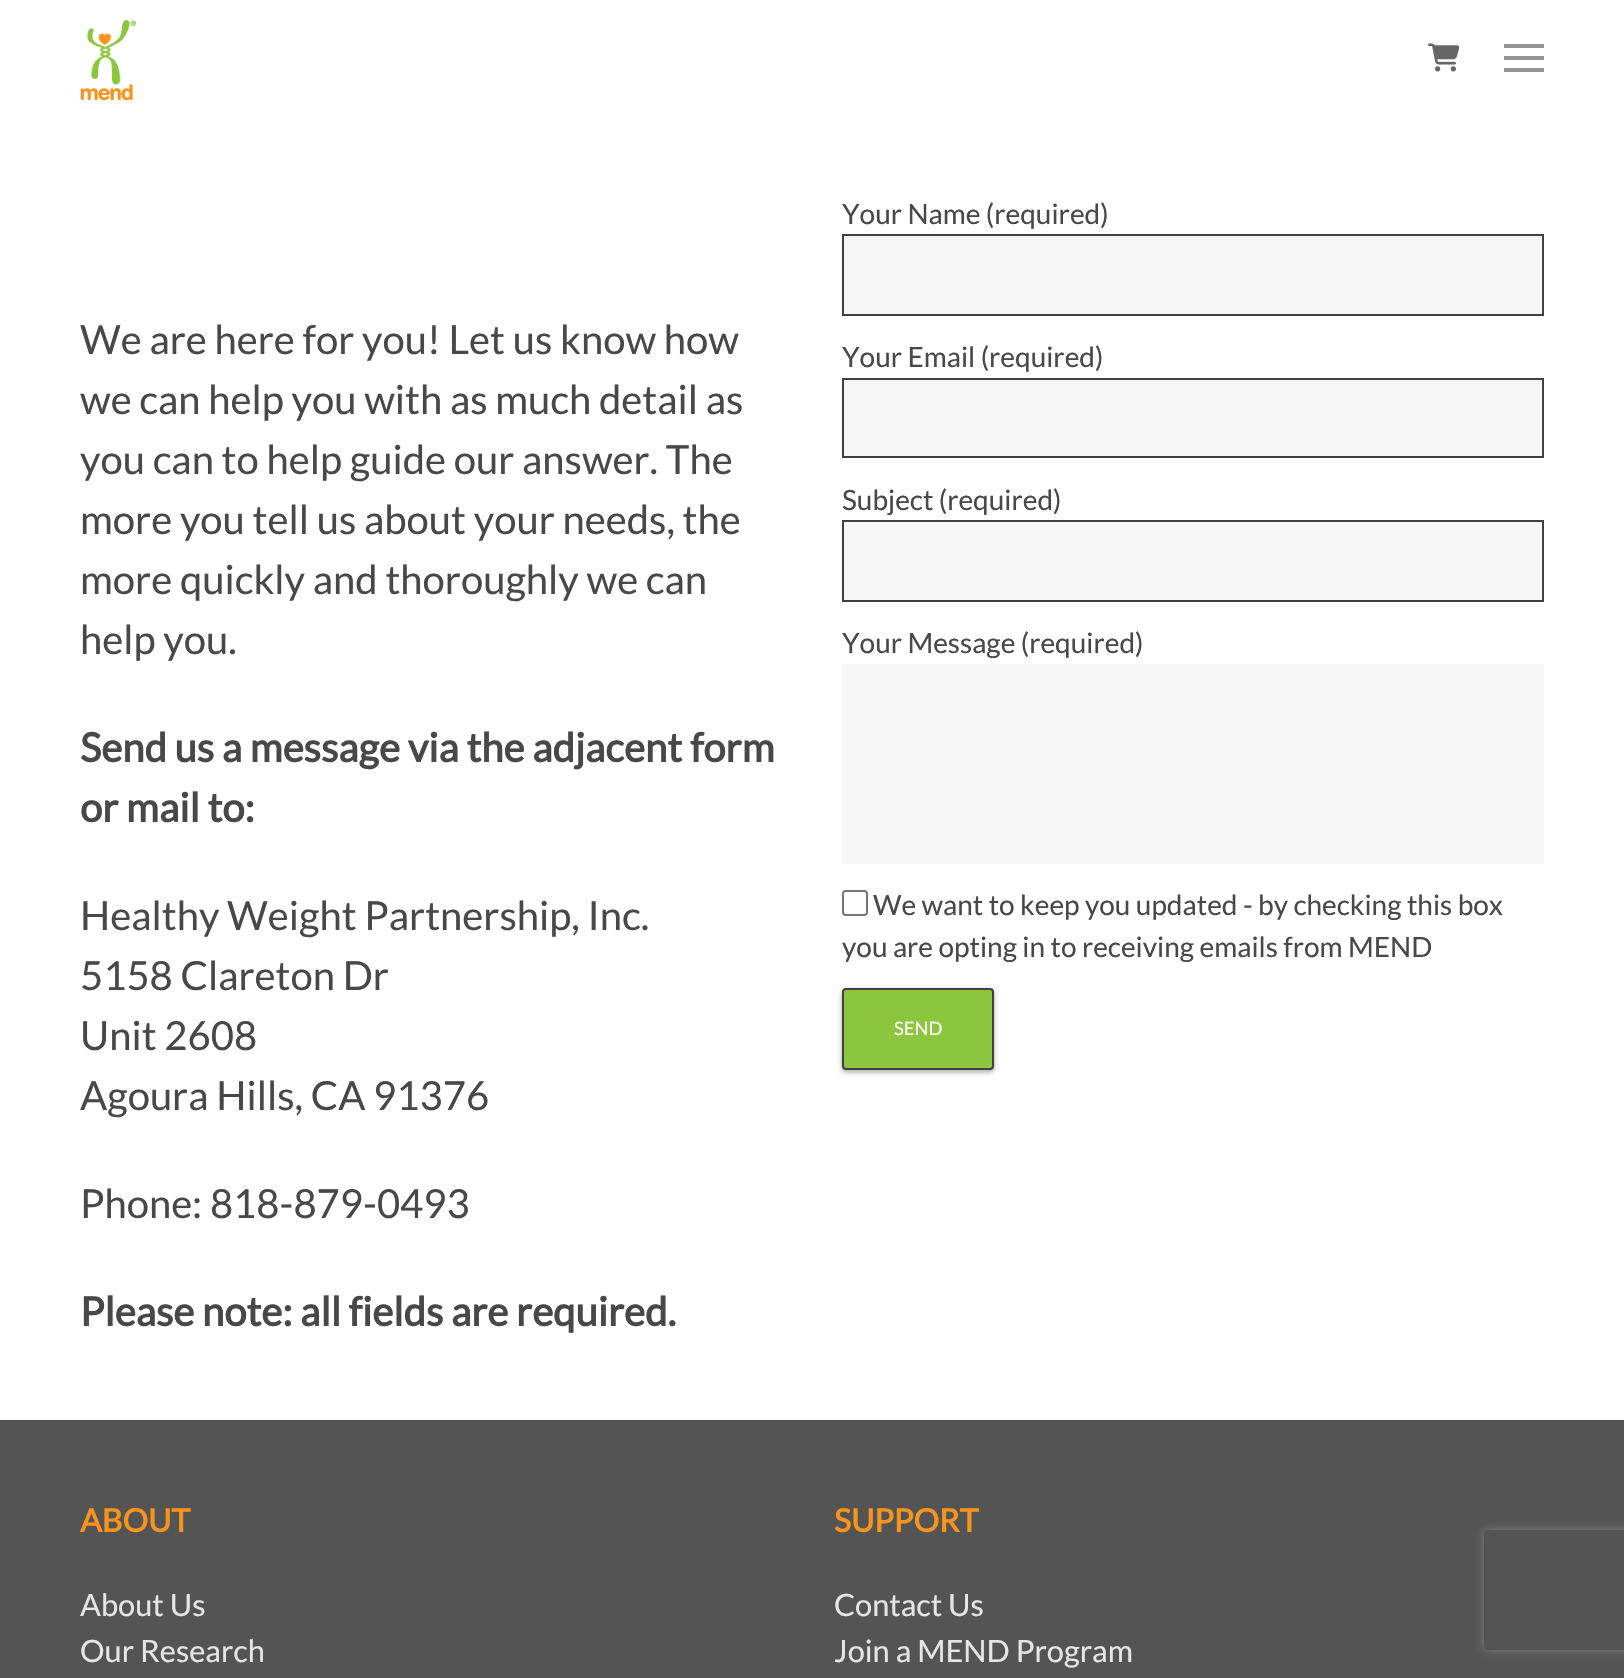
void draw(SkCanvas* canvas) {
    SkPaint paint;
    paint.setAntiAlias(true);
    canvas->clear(0xFFFFFFFF);
    canvas->drawImageRect(SkImages::DeferredFromEncodedData(SkData::MakeFromFileName("img1.png")), SkRect::MakeXYWH(80, 20, 56, 80), SkSamplingOptions());
    canvas->drawImageRect(SkImages::DeferredFromEncodedData(SkData::MakeFromFileName("img2.png")), SkRect::MakeXYWH(1428, 43, 32, 29), SkSamplingOptions());
    paint.setColor(0xFF949494);
    canvas->drawRect(SkRect::MakeXYWH(1504, 44, 40, 4), paint);
    canvas->drawRect(SkRect::MakeXYWH(1504, 56, 40, 4), paint);
    canvas->drawRect(SkRect::MakeXYWH(1504, 68, 40, 4), paint);
    SkFont font1(fontMgr->matchFamilyStyle("Lato", SkFontStyle::Normal()), 40);
    font1.setSubpixel(true);
    paint.setColor(0xFF484848);
    canvas->drawString("We are here for you! Let us know how", 80, 354, font1, paint);
    canvas->drawString("we can help you with as much detail as", 80, 414, font1, paint);
    canvas->drawString("you can to help guide our answer. The", 80, 474, font1, paint);
    canvas->drawString("more you tell us about your needs, the", 80, 534, font1, paint);
    canvas->drawString("more quickly and thoroughly we can", 80, 594, font1, paint);
    canvas->drawString("help you.", 80, 654, font1, paint);
    SkFont font2(fontMgr->matchFamilyStyle("Lato", SkFontStyle::Bold()), 40);
    font2.setSubpixel(true);
    canvas->drawString("Send us a message via the adjacent form", 80, 762, font2, paint);
    canvas->drawString("or mail to:", 80, 822, font2, paint);
    canvas->drawString("Healthy Weight Partnership, Inc.", 80, 930, font1, paint);
    canvas->drawString("5158 Clareton Dr", 80, 990, font1, paint);
    canvas->drawString("Unit 2608", 80, 1050, font1, paint);
    canvas->drawString("Agoura Hills, CA 91376", 80, 1110, font1, paint);
    canvas->drawString("Phone: 818-879-0493", 80, 1218, font1, paint);
    canvas->drawString("Please note: all fields are required.", 80, 1326, font2, paint);
    SkFont font3(fontMgr->matchFamilyStyle("Lato", SkFontStyle::Normal()), 28);
    font3.setSubpixel(true);
    canvas->drawString("Your Name (required)", 842, 224, font3, paint);
    paint.setColor(0xFFF6F6F6);
    canvas->drawRect(SkRect::MakeXYWH(843, 235, 700, 80), paint);
    paint.setStyle(SkPaint::kStroke_Style);
    paint.setStrokeWidth(2);
    paint.setColor(0xFF404040);
    canvas->drawRect(SkRect::MakeXYWH(843, 235, 700, 80), paint);
    paint.setStyle(SkPaint::kFill_Style);
    paint.setColor(0xFF484848);
    canvas->drawString("Your Email (required)", 842, 367, font3, paint);
    paint.setColor(0xFFF6F6F6);
    canvas->drawRect(SkRect::MakeXYWH(843, 379, 700, 78), paint);
    paint.setStyle(SkPaint::kStroke_Style);
    paint.setColor(0xFF404040);
    canvas->drawRect(SkRect::MakeXYWH(843, 379, 700, 78), paint);
    paint.setStyle(SkPaint::kFill_Style);
    paint.setColor(0xFF484848);
    canvas->drawString("Subject (required)", 842, 510, font3, paint);
    paint.setColor(0xFFF6F6F6);
    canvas->drawRect(SkRect::MakeXYWH(843, 521, 700, 80), paint);
    paint.setStyle(SkPaint::kStroke_Style);
    paint.setColor(0xFF404040);
    canvas->drawRect(SkRect::MakeXYWH(843, 521, 700, 80), paint);
    paint.setStyle(SkPaint::kFill_Style);
    paint.setColor(0xFF484848);
    canvas->drawString("Your Message (required)", 842, 653, font3, paint);
    paint.setColor(0xFFF6F6F6);
    canvas->drawRect(SkRect::MakeXYWH(842, 664, 702, 200), paint);
    paint.setStyle(SkPaint::kStroke_Style);
    paint.setColor(0xFF767676);
    canvas->drawRoundRect(SkRect::MakeXYWH(843, 891, 24, 24), 3, 3, paint);
    paint.setStyle(SkPaint::kFill_Style);
    paint.setColor(0xFF484848);
    canvas->drawString("We want to keep you updated - by checking this box", 873, 915, font3, paint);
    canvas->drawString("you are opting in to receiving emails from MEND", 842, 957, font3, paint);
    paint.setColor(0x3D000000);
    paint.setMaskFilter(SkMaskFilter::MakeBlur(kNormal_SkBlurStyle, 2));
    canvas->drawRoundRect(SkRect::MakeXYWH(842, 990, 152, 82), 4, 4, paint);
    paint.setMaskFilter(nullptr);
    paint.setColor(0x1F000000);
    paint.setMaskFilter(SkMaskFilter::MakeBlur(kNormal_SkBlurStyle, 3));
    canvas->drawRoundRect(SkRect::MakeXYWH(842, 990, 152, 82), 4, 4, paint);
    paint.setMaskFilter(nullptr);
    paint.setColor(0xFF8CC63F);
    canvas->drawRoundRect(SkRect::MakeXYWH(843, 989, 150, 80), 3, 3, paint);
    paint.setStyle(SkPaint::kStroke_Style);
    paint.setColor(0xFF404040);
    canvas->drawRoundRect(SkRect::MakeXYWH(843, 989, 150, 80), 3, 3, paint);
    SkFont font4(fontMgr->matchFamilyStyle("Lato", SkFontStyle::Normal()), 18.5f);
    font4.setSubpixel(true);
    paint.setStyle(SkPaint::kFill_Style);
    paint.setColor(0xFFFFFFFF);
    canvas->drawString("SEND", 894, 1035, font4, paint);
    paint.setColor(0xFF545454);
    canvas->drawRect(SkRect::MakeXYWH(0, 1420, 1624, 258), paint);
    SkFont font5(fontMgr->matchFamilyStyle("Lato", SkFontStyle::Bold()), 32);
    font5.setSubpixel(true);
    paint.setColor(0xFFF7941D);
    canvas->drawString("ABOUT", 80, 1532, font5, paint);
    SkFont font6(fontMgr->matchFamilyStyle("Lato", SkFontStyle::Normal()), 30.75f);
    font6.setSubpixel(true);
    paint.setColor(0xFFE6E6E6);
    canvas->drawString("About Us", 80, 1616, font6, paint);
    canvas->drawString("Our Research", 80, 1662, font6, paint);
    paint.setColor(0xFFF7941D);
    canvas->drawString("SUPPORT", 834, 1532, font5, paint);
    paint.setColor(0xFFE6E6E6);
    canvas->drawString("Contact Us", 834, 1616, font6, paint);
    canvas->drawString("Join a MEND Program", 834, 1662, font6, paint);
    canvas->save();
    canvas->clipPath(SkPathBuilder(SkPathFillType::kEvenOdd).moveTo(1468, 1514).lineTo(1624, 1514).lineTo(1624, 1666).lineTo(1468, 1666).close().moveTo(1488, 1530).lineTo(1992, 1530).cubicTo(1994, 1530, 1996, 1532, 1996, 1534).lineTo(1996, 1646).cubicTo(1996, 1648, 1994, 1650, 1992, 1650).lineTo(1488, 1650).cubicTo(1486, 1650, 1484, 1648, 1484, 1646).lineTo(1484, 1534).cubicTo(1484, 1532, 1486, 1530, 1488, 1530).close().detach(), true);
    paint.setColor(0xFF808080);
    paint.setMaskFilter(SkMaskFilter::MakeBlur(kNormal_SkBlurStyle, 5));
    canvas->drawRoundRect(SkRect::MakeXYWH(1484, 1530, 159, 120), 4, 4, paint);
    paint.setMaskFilter(nullptr);
    canvas->restore();
}
